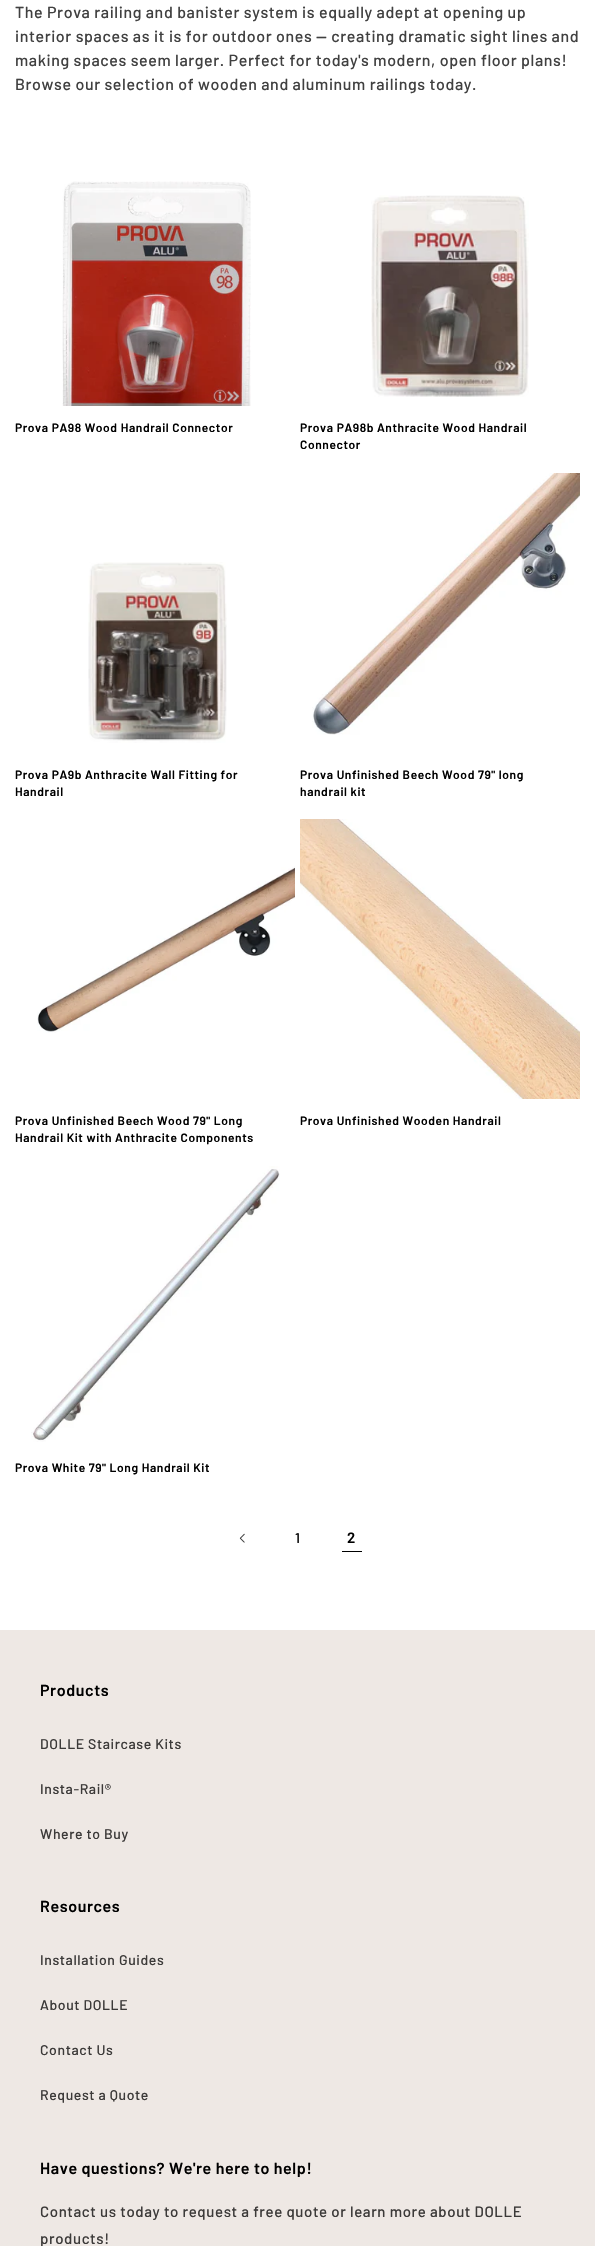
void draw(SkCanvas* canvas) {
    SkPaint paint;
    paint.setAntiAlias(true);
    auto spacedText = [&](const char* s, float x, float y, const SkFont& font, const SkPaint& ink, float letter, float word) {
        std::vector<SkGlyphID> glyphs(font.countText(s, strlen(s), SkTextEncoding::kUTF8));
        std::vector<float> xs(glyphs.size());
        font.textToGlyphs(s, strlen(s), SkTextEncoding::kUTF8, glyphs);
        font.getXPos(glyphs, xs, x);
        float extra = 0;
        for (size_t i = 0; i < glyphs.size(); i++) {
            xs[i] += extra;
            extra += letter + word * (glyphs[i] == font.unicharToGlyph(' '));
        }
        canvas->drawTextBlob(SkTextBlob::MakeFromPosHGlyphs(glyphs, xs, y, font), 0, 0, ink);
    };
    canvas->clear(0xFFFFFFFF);
    SkFont font1(fontMgr->matchFamilyStyle("Barlow", SkFontStyle(500, SkFontStyle::kNormal_Width, SkFontStyle::kUpright_Slant)), 16);
    font1.setSubpixel(true);
    paint.setColor(0xFF404040);
    spacedText("The Prova railing and banister system is equally adept at opening up", 15, 18, font1, paint, 0.6f, 0);
    spacedText("interior spaces as it is for outdoor ones — creating dramatic sight lines and", 15, 42, font1, paint, 0.6f, 0);
    spacedText("making spaces seem larger. Perfect for today's modern, open floor plans!", 15, 66, font1, paint, 0.6f, 0);
    spacedText("Browse our selection of wooden and aluminum railings today.", 15, 90, font1, paint, 0.6f, 0);
    canvas->drawImageRect(SkImages::DeferredFromEncodedData(SkData::MakeFromFileName("img1.png")), SkRect::MakeXYWH(62, 181, 189, 225), SkSamplingOptions());
    SkFont font2(fontMgr->matchFamilyStyle("Barlow", SkFontStyle(600, SkFontStyle::kNormal_Width, SkFontStyle::kUpright_Slant)), 12);
    font2.setSubpixel(true);
    paint.setColor(0xFF000000);
    spacedText("Prova PA98 Wood Handrail Connector", 15, 432, font2, paint, 0.6f, 0);
    canvas->drawImageRect(SkImages::DeferredFromEncodedData(SkData::MakeFromFileName("img2.png")), SkRect::MakeXYWH(371, 195, 158, 202), SkSamplingOptions());
    spacedText("Prova PA98b Anthracite Wood Handrail", 300, 432, font2, paint, 0.6f, 0);
    spacedText("Connector", 300, 449, font2, paint, 0.6f, 0);
    canvas->drawImageRect(SkImages::DeferredFromEncodedData(SkData::MakeFromFileName("img3.png")), SkRect::MakeXYWH(88, 562, 139, 181), SkSamplingOptions());
    spacedText("Prova PA9b Anthracite Wall Fitting for", 15, 779, font2, paint, 0.6f, 0);
    spacedText("Handrail", 15, 796, font2, paint, 0.6f, 0);
    canvas->drawImageRect(SkImages::DeferredFromEncodedData(SkData::MakeFromFileName("img4.png")), SkRect::MakeXYWH(312, 473, 268, 262), SkSamplingOptions());
    spacedText("Prova Unfinished Beech Wood 79\" long", 300, 779, font2, paint, 0.6f, 0);
    spacedText("handrail kit", 300, 796, font2, paint, 0.6f, 0);
    canvas->drawImageRect(SkImages::DeferredFromEncodedData(SkData::MakeFromFileName("img5.png")), SkRect::MakeXYWH(37, 866, 258, 167), SkSamplingOptions());
    spacedText("Prova Unfinished Beech Wood 79\" Long", 15, 1125, font2, paint, 0.6f, 0);
    spacedText("Handrail Kit with Anthracite Components", 15, 1142, font2, paint, 0.6f, 0);
    canvas->drawImageRect(SkImages::DeferredFromEncodedData(SkData::MakeFromFileName("img6.png")), SkRect::MakeXYWH(300, 819, 280, 280), SkSamplingOptions());
    spacedText("Prova Unfinished Wooden Handrail", 300, 1125, font2, paint, 0.6f, 0);
    canvas->drawImageRect(SkImages::DeferredFromEncodedData(SkData::MakeFromFileName("img7.png")), SkRect::MakeXYWH(31, 1166, 249, 276), SkSamplingOptions());
    spacedText("Prova White 79\" Long Handrail Kit", 15, 1472, font2, paint, 0.6f, 0);
    canvas->drawImageRect(SkImages::DeferredFromEncodedData(SkData::MakeFromFileName("img8.png")), SkRect::MakeXYWH(239, 1533, 6, 10), SkSamplingOptions());
    SkFont font3(fontMgr->matchFamilyStyle("Barlow", SkFontStyle(500, SkFontStyle::kNormal_Width, SkFontStyle::kUpright_Slant)), 14);
    font3.setSubpixel(true);
    spacedText("1", 295, 1543, font3, paint, 0.6f, 0);
    SkFont font4(fontMgr->matchFamilyStyle("Barlow", SkFontStyle(600, SkFontStyle::kNormal_Width, SkFontStyle::kUpright_Slant)), 15);
    font4.setSubpixel(true);
    spacedText("2", 347, 1543, font4, paint, 0.6f, 0);
    canvas->drawRect(SkRect::MakeXYWH(342, 1551, 20, 1), paint);
    paint.setColor(0xFFEEE8E4);
    canvas->drawRect(SkRect::MakeXYWH(0, 1630, 595, 616), paint);
    SkFont font5(fontMgr->matchFamilyStyle("Barlow", SkFontStyle(600, SkFontStyle::kNormal_Width, SkFontStyle::kUpright_Slant)), 16);
    font5.setSubpixel(true);
    paint.setColor(0xFF000000);
    spacedText("Products", 40, 1696, font5, paint, 0.6f, 0);
    paint.setColor(0xFF3C3A39);
    spacedText("DOLLE Staircase Kits", 40, 1749, font3, paint, 0.6f, 0);
    spacedText("Insta-Rail®", 40, 1794, font3, paint, 0.6f, 0);
    spacedText("Where to Buy", 40, 1839, font3, paint, 0.6f, 0);
    paint.setColor(0xFF000000);
    spacedText("Resources", 40, 1912, font5, paint, 0.6f, 0);
    paint.setColor(0xFF3C3A39);
    spacedText("Installation Guides", 40, 1965, font3, paint, 0.6f, 0);
    spacedText("About DOLLE", 40, 2010, font3, paint, 0.6f, 0);
    spacedText("Contact Us", 40, 2055, font3, paint, 0.6f, 0);
    spacedText("Request a Quote", 40, 2100, font3, paint, 0.6f, 0);
    paint.setColor(0xFF000000);
    spacedText("Have questions? We're here to help!", 40, 2174, font5, paint, 0.6f, 0);
    SkFont font6(fontMgr->matchFamilyStyle("Barlow", SkFontStyle(500, SkFontStyle::kNormal_Width, SkFontStyle::kUpright_Slant)), 15);
    font6.setSubpixel(true);
    paint.setColor(0xFF3C3A39);
    spacedText("Contact us today to request a free quote or learn more about DOLLE", 40, 2217, font6, paint, 0.6f, 0);
    spacedText("products!", 40, 2244, font6, paint, 0.6f, 0);
}
